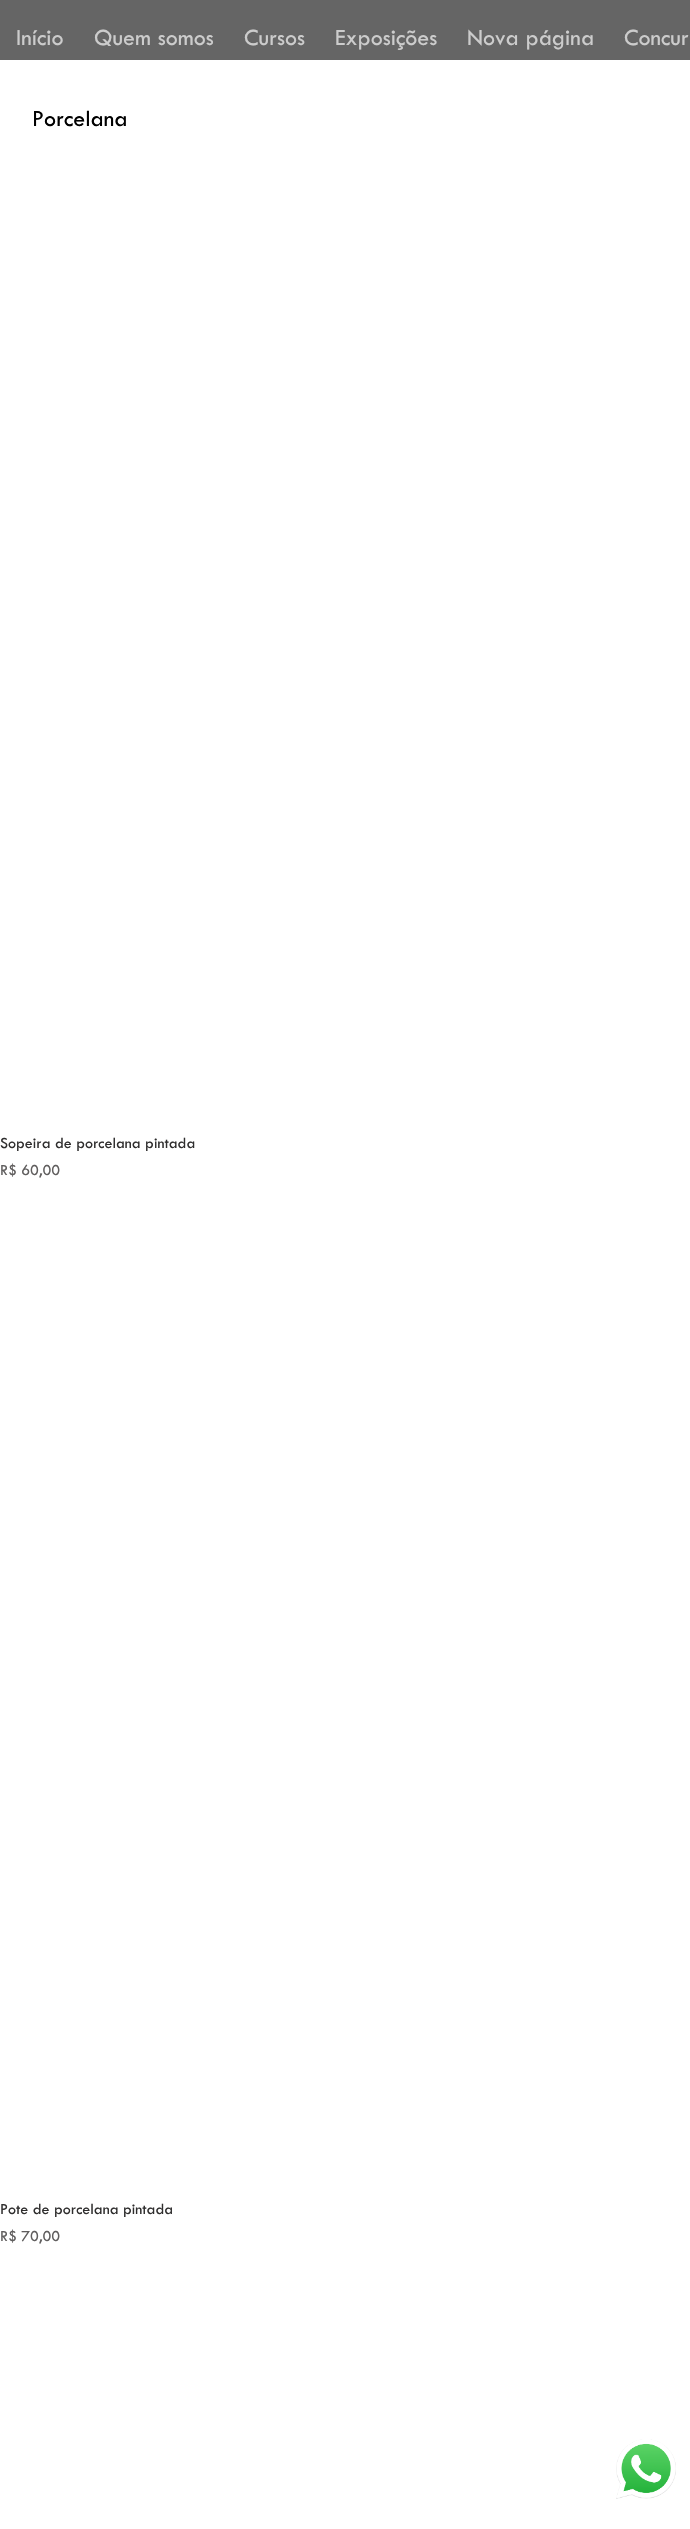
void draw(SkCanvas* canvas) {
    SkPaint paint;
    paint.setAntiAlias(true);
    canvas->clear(0xFFFFFFFF);
    paint.setColor(0xFF656565);
    canvas->drawRect(SkRect::MakeXYWH(0, 0, 690, 60), paint);
    SkFont font1(fontMgr->matchFamilyStyle("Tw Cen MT", SkFontStyle::Normal()), 24);
    font1.setSubpixel(true);
    paint.setColor(0xFFCCCCCC);
    canvas->drawString("Início", 16, 45, font1, paint);
    canvas->drawString("Quem somos", 94, 45, font1, paint);
    canvas->drawString("Cursos", 244, 45, font1, paint);
    canvas->drawString("Exposições", 335, 45, font1, paint);
    canvas->drawString("Nova página", 467, 45, font1, paint);
    canvas->drawString("Concur", 624, 45, font1, paint);
    paint.setColor(0xFF000000);
    canvas->drawString("Porcelana", 32, 126, font1, paint);
    SkFont font2(fontMgr->matchFamilyStyle("Tw Cen MT", SkFontStyle::Normal()), 16);
    font2.setSubpixel(true);
    paint.setColor(0xFF2F2E2E);
    canvas->drawString("Sopeira de porcelana pintada", 0, 1148, font2, paint);
    paint.setColor(0xFF605E5E);
    canvas->drawString("R$ 60,00", 0, 1175, font2, paint);
    paint.setColor(0xFF2F2E2E);
    canvas->drawString("Pote de porcelana pintada", 0, 2214, font2, paint);
    paint.setColor(0xFF605E5E);
    canvas->drawString("R$ 70,00", 0, 2241, font2, paint);
    canvas->drawImageRect(SkImages::DeferredFromEncodedData(SkData::MakeFromFileName("img1.png")), SkRect::MakeXYWH(616, 2439, 60, 60), SkSamplingOptions());
}
